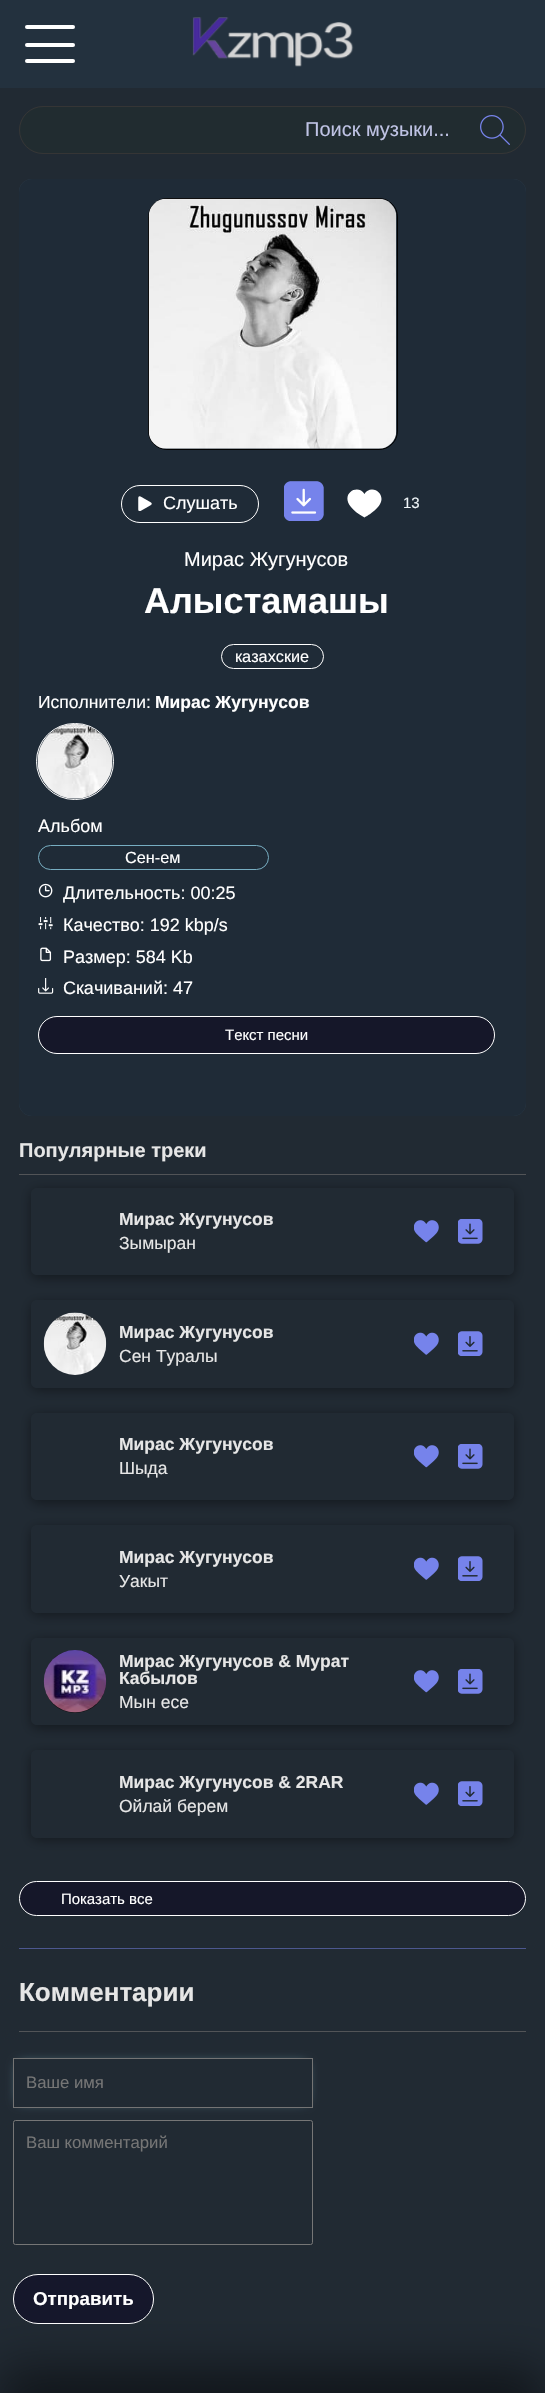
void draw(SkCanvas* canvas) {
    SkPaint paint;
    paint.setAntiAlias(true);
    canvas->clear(0xFF212A33);
    paint.setColor(0xFF23313E);
    canvas->drawRect(SkRect::MakeXYWH(0, 0, 545, 88), paint);
    paint.setColor(0xFFFFFFFF);
    canvas->drawRoundRect(SkRect::MakeXYWH(25, 25, 50, 4), 2, 2, paint);
    canvas->drawRoundRect(SkRect::MakeXYWH(25, 43, 50, 4), 2, 2, paint);
    canvas->drawRoundRect(SkRect::MakeXYWH(25, 59, 50, 4), 2, 2, paint);
    canvas->drawImageRect(SkImages::DeferredFromEncodedData(SkData::MakeFromFileName("img1.png")), SkRect::MakeXYWH(192, 17, 162, 50), SkSamplingOptions());
    paint.setColor(0xFF212C30);
    canvas->drawRoundRect(SkRect::MakeXYWH(19.5f, 106.5f, 506, 47), 23.5f, 23.5f, paint);
    paint.setStyle(SkPaint::kStroke_Style);
    paint.setStrokeWidth(1);
    paint.setColor(0xFF353535);
    canvas->drawRoundRect(SkRect::MakeXYWH(19.5f, 106.5f, 506, 47), 23.5f, 23.5f, paint);
    SkFont font1(fontMgr->matchFamilyStyle("Liberation Sans", SkFontStyle::Normal()), 20);
    font1.setSubpixel(true);
    paint.setStyle(SkPaint::kFill_Style);
    paint.setColor(0xFFBFC3E4);
    canvas->drawString("Поиск музыки...", 305, 136, font1, paint);
    canvas->drawImageRect(SkImages::DeferredFromEncodedData(SkData::MakeFromFileName("img2.png")), SkRect::MakeXYWH(480, 115, 30, 30), SkSamplingOptions());
    paint.setColor(0xFF3D566E);
    canvas->drawRoundRect(SkRect::MakeXYWH(19, 179, 507, 937), 13, 13, paint);
    paint.setColor(0x80000000);
    canvas->drawRoundRect(SkRect::MakeXYWH(19, 179, 507, 937), 13, 13, paint);
    paint.setStyle(SkPaint::kStroke_Style);
    paint.setColor(0xFF000000);
    canvas->drawRoundRect(SkRect::MakeXYWH(148.5f, 198.5f, 249, 251), 18.5f, 18.5f, paint);
    canvas->drawImageRect(SkImages::DeferredFromEncodedData(SkData::MakeFromFileName("img3.png")), SkRect::MakeXYWH(148, 198, 249, 251), SkSamplingOptions());
    paint.setColor(0xFFFFFFFF);
    canvas->drawRoundRect(SkRect::MakeXYWH(121.5f, 485.5f, 137, 37), 18.5f, 18.5f, paint);
    canvas->drawImageRect(SkImages::DeferredFromEncodedData(SkData::MakeFromFileName("img4.png")), SkRect::MakeXYWH(138, 496, 14, 15), SkSamplingOptions());
    SkFont font2(fontMgr->matchFamilyStyle("Liberation Sans", SkFontStyle::Normal()), 18);
    font2.setSubpixel(true);
    paint.setStyle(SkPaint::kFill_Style);
    canvas->drawString("Слушать", 163, 509, font2, paint);
    canvas->drawImageRect(SkImages::DeferredFromEncodedData(SkData::MakeFromFileName("img5.png")), SkRect::MakeXYWH(284, 481, 40, 40), SkSamplingOptions());
    canvas->drawPath(SkPathBuilder().moveTo(372, 489.5f).cubicTo(369, 489.5f, 366, 491, 364.5f, 494).cubicTo(356.5f, 481, 330.5f, 499, 364.5f, 517.5f).cubicTo(364.5f, 517.5f, 381.5f, 508.5f, 381.5f, 499).cubicTo(381.5f, 494, 377.5f, 489.5f, 372, 489.5f).close().detach(), paint);
    SkFont font3(fontMgr->matchFamilyStyle("Liberation Sans", SkFontStyle::Normal()), 15);
    font3.setSubpixel(true);
    paint.setColor(0xFFF0F6F9);
    canvas->drawString("13", 403, 508, font3, paint);
    paint.setColor(0xFFFFFFFF);
    canvas->drawString("Мирас Жугунусов", 184, 566, font1, paint);
    SkFont font4(fontMgr->matchFamilyStyle("Liberation Sans", SkFontStyle::Bold()), 36);
    font4.setSubpixel(true);
    canvas->drawString("Алыстамашы", 144, 613, font4, paint);
    paint.setStyle(SkPaint::kStroke_Style);
    canvas->drawRoundRect(SkRect::MakeXYWH(221.5f, 644.5f, 102, 24), 12, 12, paint);
    SkFont font5(fontMgr->matchFamilyStyle("Liberation Sans", SkFontStyle::Normal()), 16.25f);
    font5.setSubpixel(true);
    paint.setStyle(SkPaint::kFill_Style);
    canvas->drawString("казахские", 235, 662, font5, paint);
    SkFont font6(fontMgr->matchFamilyStyle("Liberation Sans", SkFontStyle::Normal()), 17.5f);
    font6.setSubpixel(true);
    canvas->drawString("Исполнители:", 38, 708, font6, paint);
    SkFont font7(fontMgr->matchFamilyStyle("Liberation Sans", SkFontStyle::Bold()), 17.5f);
    font7.setSubpixel(true);
    canvas->drawString("Мирас Жугунусов", 155, 708, font7, paint);
    paint.setStyle(SkPaint::kStroke_Style);
    canvas->drawRoundRect(SkRect::MakeXYWH(36.5f, 723.5f, 77, 76), 38, 38, paint);
    canvas->drawImageRect(SkImages::DeferredFromEncodedData(SkData::MakeFromFileName("img6.png")), SkRect::MakeXYWH(37, 724, 76, 75), SkSamplingOptions());
    paint.setStyle(SkPaint::kFill_Style);
    canvas->drawString("Альбом", 38, 832, font2, paint);
    paint.setStyle(SkPaint::kStroke_Style);
    paint.setColor(0xFF77AEC2);
    canvas->drawRoundRect(SkRect::MakeXYWH(38.5f, 845.5f, 230, 24), 12, 12, paint);
    paint.setStyle(SkPaint::kFill_Style);
    paint.setColor(0xFFFFFFFF);
    canvas->drawString("Сен-ем", 125, 863, font5, paint);
    canvas->drawImageRect(SkImages::DeferredFromEncodedData(SkData::MakeFromFileName("img7.png")), SkRect::MakeXYWH(38, 883, 15, 15), SkSamplingOptions());
    canvas->drawString("Длительность: 00:25", 63, 899, font2, paint);
    canvas->drawImageRect(SkImages::DeferredFromEncodedData(SkData::MakeFromFileName("img8.png")), SkRect::MakeXYWH(38, 917, 15, 13), SkSamplingOptions());
    canvas->drawString("Качество: 192 kbp/s", 63, 931, font2, paint);
    canvas->drawImageRect(SkImages::DeferredFromEncodedData(SkData::MakeFromFileName("img9.png")), SkRect::MakeXYWH(40, 947, 12, 15), SkSamplingOptions());
    canvas->drawString("Размер: 584 Kb", 63, 963, font2, paint);
    canvas->drawImageRect(SkImages::DeferredFromEncodedData(SkData::MakeFromFileName("img10.png")), SkRect::MakeXYWH(38, 978, 16, 16), SkSamplingOptions());
    canvas->drawString("Скачиваний: 47", 63, 994, font2, paint);
    paint.setColor(0xFF151729);
    canvas->drawRoundRect(SkRect::MakeXYWH(38.5f, 1016.5f, 456, 37), 18.5f, 18.5f, paint);
    paint.setStyle(SkPaint::kStroke_Style);
    paint.setColor(0xFFFFFFFF);
    canvas->drawRoundRect(SkRect::MakeXYWH(38.5f, 1016.5f, 456, 37), 18.5f, 18.5f, paint);
    paint.setStyle(SkPaint::kFill_Style);
    canvas->drawString("Текст песни", 225, 1040, font3, paint);
    paint.setColor(0xFF4C578F);
    canvas->drawRect(SkRect::MakeXYWH(19, 1948, 507, 1), paint);
    paint.setColor(0xFF525457);
    canvas->drawRect(SkRect::MakeXYWH(19, 1174, 507, 1), paint);
    SkFont font8(fontMgr->matchFamilyStyle("Liberation Sans", SkFontStyle::Bold()), 20);
    font8.setSubpixel(true);
    paint.setColor(0xFFE6E6E6);
    canvas->drawString("Популярные треки", 19, 1157, font8, paint);
    canvas->save();
    canvas->clipPath(SkPathBuilder(SkPathFillType::kEvenOdd).moveTo(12, 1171).lineTo(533, 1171).lineTo(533, 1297).lineTo(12, 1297).close().moveTo(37, 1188).lineTo(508, 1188).cubicTo(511.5f, 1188, 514, 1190.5f, 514, 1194).lineTo(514, 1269).cubicTo(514, 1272.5f, 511.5f, 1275, 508, 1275).lineTo(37, 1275).cubicTo(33.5f, 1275, 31, 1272.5f, 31, 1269).lineTo(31, 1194).cubicTo(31, 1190.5f, 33.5f, 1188, 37, 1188).close().detach(), true);
    paint.setColor(0x66000000);
    paint.setMaskFilter(SkMaskFilter::MakeBlur(kNormal_SkBlurStyle, 6));
    canvas->drawRoundRect(SkRect::MakeXYWH(31, 1190, 483, 88), 6, 6, paint);
    paint.setMaskFilter(nullptr);
    canvas->restore();
    paint.setColor(0xFFE6E6E6);
    canvas->drawString("Мирас Жугунусов", 119, 1225, font7, paint);
    canvas->drawString("Зымыран", 119, 1249, font6, paint);
    canvas->drawImageRect(SkImages::DeferredFromEncodedData(SkData::MakeFromFileName("img11.png")), SkRect::MakeXYWH(414, 1220, 25, 23), SkSamplingOptions());
    canvas->drawImageRect(SkImages::DeferredFromEncodedData(SkData::MakeFromFileName("img12.png")), SkRect::MakeXYWH(458, 1219, 25, 25), SkSamplingOptions());
    canvas->save();
    canvas->clipPath(SkPathBuilder(SkPathFillType::kEvenOdd).moveTo(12, 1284).lineTo(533, 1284).lineTo(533, 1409).lineTo(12, 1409).close().moveTo(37, 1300).lineTo(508, 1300).cubicTo(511.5f, 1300, 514, 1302.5f, 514, 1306).lineTo(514, 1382).cubicTo(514, 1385.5f, 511.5f, 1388, 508, 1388).lineTo(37, 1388).cubicTo(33.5f, 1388, 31, 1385.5f, 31, 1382).lineTo(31, 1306).cubicTo(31, 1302.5f, 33.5f, 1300, 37, 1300).close().detach(), true);
    paint.setColor(0x66000000);
    paint.setMaskFilter(SkMaskFilter::MakeBlur(kNormal_SkBlurStyle, 6));
    canvas->drawRoundRect(SkRect::MakeXYWH(31, 1303, 483, 87), 6, 6, paint);
    paint.setMaskFilter(nullptr);
    canvas->restore();
    canvas->drawImageRect(SkImages::DeferredFromEncodedData(SkData::MakeFromFileName("img13.png")), SkRect::MakeXYWH(43, 1312, 64, 63), SkSamplingOptions());
    paint.setColor(0xFFE6E6E6);
    canvas->drawString("Мирас Жугунусов", 119, 1338, font7, paint);
    canvas->drawString("Сен Туралы", 119, 1362, font6, paint);
    canvas->drawImageRect(SkImages::DeferredFromEncodedData(SkData::MakeFromFileName("img14.png")), SkRect::MakeXYWH(414, 1332, 25, 23), SkSamplingOptions());
    canvas->drawImageRect(SkImages::DeferredFromEncodedData(SkData::MakeFromFileName("img15.png")), SkRect::MakeXYWH(458, 1331, 25, 25), SkSamplingOptions());
    canvas->save();
    canvas->clipPath(SkPathBuilder(SkPathFillType::kEvenOdd).moveTo(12, 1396).lineTo(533, 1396).lineTo(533, 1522).lineTo(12, 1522).close().moveTo(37, 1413).lineTo(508, 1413).cubicTo(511.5f, 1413, 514, 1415.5f, 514, 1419).lineTo(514, 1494).cubicTo(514, 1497.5f, 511.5f, 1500, 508, 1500).lineTo(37, 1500).cubicTo(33.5f, 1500, 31, 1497.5f, 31, 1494).lineTo(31, 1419).cubicTo(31, 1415.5f, 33.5f, 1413, 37, 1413).close().detach(), true);
    paint.setColor(0x66000000);
    paint.setMaskFilter(SkMaskFilter::MakeBlur(kNormal_SkBlurStyle, 6));
    canvas->drawRoundRect(SkRect::MakeXYWH(31, 1415, 483, 88), 6, 6, paint);
    paint.setMaskFilter(nullptr);
    canvas->restore();
    paint.setColor(0xFFE6E6E6);
    canvas->drawString("Мирас Жугунусов", 119, 1450, font7, paint);
    canvas->drawString("Шыда", 119, 1474, font6, paint);
    canvas->drawImageRect(SkImages::DeferredFromEncodedData(SkData::MakeFromFileName("img11.png")), SkRect::MakeXYWH(414, 1445, 25, 23), SkSamplingOptions());
    canvas->drawImageRect(SkImages::DeferredFromEncodedData(SkData::MakeFromFileName("img12.png")), SkRect::MakeXYWH(458, 1444, 25, 25), SkSamplingOptions());
    canvas->save();
    canvas->clipPath(SkPathBuilder(SkPathFillType::kEvenOdd).moveTo(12, 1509).lineTo(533, 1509).lineTo(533, 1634).lineTo(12, 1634).close().moveTo(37, 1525).lineTo(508, 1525).cubicTo(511.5f, 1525, 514, 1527.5f, 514, 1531).lineTo(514, 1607).cubicTo(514, 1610.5f, 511.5f, 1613, 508, 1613).lineTo(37, 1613).cubicTo(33.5f, 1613, 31, 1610.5f, 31, 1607).lineTo(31, 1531).cubicTo(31, 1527.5f, 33.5f, 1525, 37, 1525).close().detach(), true);
    paint.setColor(0x66000000);
    paint.setMaskFilter(SkMaskFilter::MakeBlur(kNormal_SkBlurStyle, 6));
    canvas->drawRoundRect(SkRect::MakeXYWH(31, 1528, 483, 87), 6, 6, paint);
    paint.setMaskFilter(nullptr);
    canvas->restore();
    paint.setColor(0xFFE6E6E6);
    canvas->drawString("Мирас Жугунусов", 119, 1563, font7, paint);
    canvas->drawString("Уакыт", 119, 1587, font6, paint);
    canvas->drawImageRect(SkImages::DeferredFromEncodedData(SkData::MakeFromFileName("img14.png")), SkRect::MakeXYWH(414, 1557, 25, 23), SkSamplingOptions());
    canvas->drawImageRect(SkImages::DeferredFromEncodedData(SkData::MakeFromFileName("img15.png")), SkRect::MakeXYWH(458, 1556, 25, 25), SkSamplingOptions());
    canvas->save();
    canvas->clipPath(SkPathBuilder(SkPathFillType::kEvenOdd).moveTo(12, 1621).lineTo(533, 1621).lineTo(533, 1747).lineTo(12, 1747).close().moveTo(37, 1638).lineTo(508, 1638).cubicTo(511.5f, 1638, 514, 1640.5f, 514, 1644).lineTo(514, 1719).cubicTo(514, 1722.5f, 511.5f, 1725, 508, 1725).lineTo(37, 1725).cubicTo(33.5f, 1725, 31, 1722.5f, 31, 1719).lineTo(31, 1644).cubicTo(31, 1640.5f, 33.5f, 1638, 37, 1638).close().detach(), true);
    paint.setColor(0x66000000);
    paint.setMaskFilter(SkMaskFilter::MakeBlur(kNormal_SkBlurStyle, 6));
    canvas->drawRoundRect(SkRect::MakeXYWH(31, 1640, 483, 88), 6, 6, paint);
    paint.setMaskFilter(nullptr);
    canvas->restore();
    canvas->save();
    canvas->clipPath(SkPathBuilder().moveTo(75, 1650).cubicTo(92, 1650, 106, 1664, 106, 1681).lineTo(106, 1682).cubicTo(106, 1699, 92, 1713, 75, 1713).cubicTo(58, 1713, 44, 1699, 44, 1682).lineTo(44, 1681).cubicTo(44, 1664, 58, 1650, 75, 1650).close().detach(), true);
    paint.setColor(0xFF0A0000);
    paint.setMaskFilter(SkMaskFilter::MakeBlur(kNormal_SkBlurStyle, 6));
    canvas->drawRect(SkRect::MakeXYWH(44, 1650, 62, 63), paint);
    paint.setMaskFilter(nullptr);
    canvas->restore();
    canvas->drawImageRect(SkImages::DeferredFromEncodedData(SkData::MakeFromFileName("img16.png")), SkRect::MakeXYWH(43, 1650, 64, 63), SkSamplingOptions());
    paint.setColor(0xFFE6E6E6);
    canvas->drawString("Мирас Жугунусов & Мурат", 119, 1667, font7, paint);
    canvas->drawString("Кабылов", 119, 1684, font7, paint);
    canvas->drawString("Мын есе", 119, 1708, font6, paint);
    canvas->drawImageRect(SkImages::DeferredFromEncodedData(SkData::MakeFromFileName("img11.png")), SkRect::MakeXYWH(414, 1670, 25, 23), SkSamplingOptions());
    canvas->drawImageRect(SkImages::DeferredFromEncodedData(SkData::MakeFromFileName("img12.png")), SkRect::MakeXYWH(458, 1669, 25, 25), SkSamplingOptions());
    canvas->save();
    canvas->clipPath(SkPathBuilder(SkPathFillType::kEvenOdd).moveTo(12, 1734).lineTo(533, 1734).lineTo(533, 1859).lineTo(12, 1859).close().moveTo(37, 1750).lineTo(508, 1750).cubicTo(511.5f, 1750, 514, 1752.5f, 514, 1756).lineTo(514, 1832).cubicTo(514, 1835.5f, 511.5f, 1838, 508, 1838).lineTo(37, 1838).cubicTo(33.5f, 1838, 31, 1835.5f, 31, 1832).lineTo(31, 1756).cubicTo(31, 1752.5f, 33.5f, 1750, 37, 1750).close().detach(), true);
    paint.setColor(0x66000000);
    paint.setMaskFilter(SkMaskFilter::MakeBlur(kNormal_SkBlurStyle, 6));
    canvas->drawRoundRect(SkRect::MakeXYWH(31, 1753, 483, 87), 6, 6, paint);
    paint.setMaskFilter(nullptr);
    canvas->restore();
    paint.setColor(0xFFE6E6E6);
    canvas->drawString("Мирас Жугунусов & 2RAR", 119, 1788, font7, paint);
    canvas->drawString("Ойлай берем", 119, 1812, font6, paint);
    canvas->drawImageRect(SkImages::DeferredFromEncodedData(SkData::MakeFromFileName("img14.png")), SkRect::MakeXYWH(414, 1782, 25, 23), SkSamplingOptions());
    canvas->drawImageRect(SkImages::DeferredFromEncodedData(SkData::MakeFromFileName("img15.png")), SkRect::MakeXYWH(458, 1781, 25, 25), SkSamplingOptions());
    paint.setColor(0xFF151729);
    canvas->drawRoundRect(SkRect::MakeXYWH(19.5f, 1881.5f, 506, 34), 17, 17, paint);
    paint.setStyle(SkPaint::kStroke_Style);
    paint.setColor(0xFFFFFFFF);
    canvas->drawRoundRect(SkRect::MakeXYWH(19.5f, 1881.5f, 506, 34), 17, 17, paint);
    paint.setStyle(SkPaint::kFill_Style);
    canvas->drawString("Показать все", 61, 1904, font3, paint);
    paint.setColor(0xFF525457);
    canvas->drawRect(SkRect::MakeXYWH(19, 2031, 507, 1), paint);
    SkFont font9(fontMgr->matchFamilyStyle("Liberation Sans", SkFontStyle::Bold()), 26);
    font9.setSubpixel(true);
    paint.setColor(0xFFE6E6E6);
    canvas->drawString("Комментарии", 19, 2001, font9, paint);
    canvas->save();
    canvas->clipPath(SkPathBuilder(SkPathFillType::kEvenOdd).moveTo(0, 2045).lineTo(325, 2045).lineTo(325, 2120).lineTo(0, 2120).close().moveTo(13, 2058).lineTo(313, 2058).lineTo(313, 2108).lineTo(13, 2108).close().detach(), true);
    paint.setColor(0xFF77AEC2);
    paint.setMaskFilter(SkMaskFilter::MakeBlur(kNormal_SkBlurStyle, 6));
    canvas->drawRect(SkRect::MakeXYWH(19, 2064, 287, 37), paint);
    paint.setMaskFilter(nullptr);
    canvas->restore();
    paint.setStyle(SkPaint::kStroke_Style);
    paint.setColor(0xFF747474);
    canvas->drawRect(SkRect::MakeXYWH(13.5f, 2058.5f, 299, 49), paint);
    SkFont font10(fontMgr->matchFamilyStyle("Liberation Sans", SkFontStyle::Normal()), 16.75f);
    font10.setSubpixel(true);
    paint.setStyle(SkPaint::kFill_Style);
    paint.setColor(0xFF757575);
    canvas->drawString("Ваше имя", 26, 2088, font10, paint);
    paint.setStyle(SkPaint::kStroke_Style);
    paint.setColor(0xFF767676);
    canvas->drawRoundRect(SkRect::MakeXYWH(13.5f, 2120.5f, 299, 124), 2, 2, paint);
    paint.setStyle(SkPaint::kFill_Style);
    paint.setColor(0xFF757575);
    canvas->drawString("Ваш комментарий", 26, 2148, font10, paint);
    paint.setColor(0xFF15172B);
    canvas->drawRoundRect(SkRect::MakeXYWH(13.5f, 2274.5f, 140, 49), 24.5f, 24.5f, paint);
    paint.setStyle(SkPaint::kStroke_Style);
    paint.setColor(0xFFFFFFFF);
    canvas->drawRoundRect(SkRect::MakeXYWH(13.5f, 2274.5f, 140, 49), 24.5f, 24.5f, paint);
    SkFont font11(fontMgr->matchFamilyStyle("Liberation Sans", SkFontStyle::Bold()), 18.75f);
    font11.setSubpixel(true);
    paint.setStyle(SkPaint::kFill_Style);
    canvas->drawString("Отправить", 33, 2305, font11, paint);
    paint.setColor(0x80000000);
    paint.setMaskFilter(SkMaskFilter::MakeBlur(kNormal_SkBlurStyle, 25));
    canvas->drawRect(SkRect::MakeXYWH(0, 2369, 545, 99), paint);
    paint.setMaskFilter(nullptr);
}
